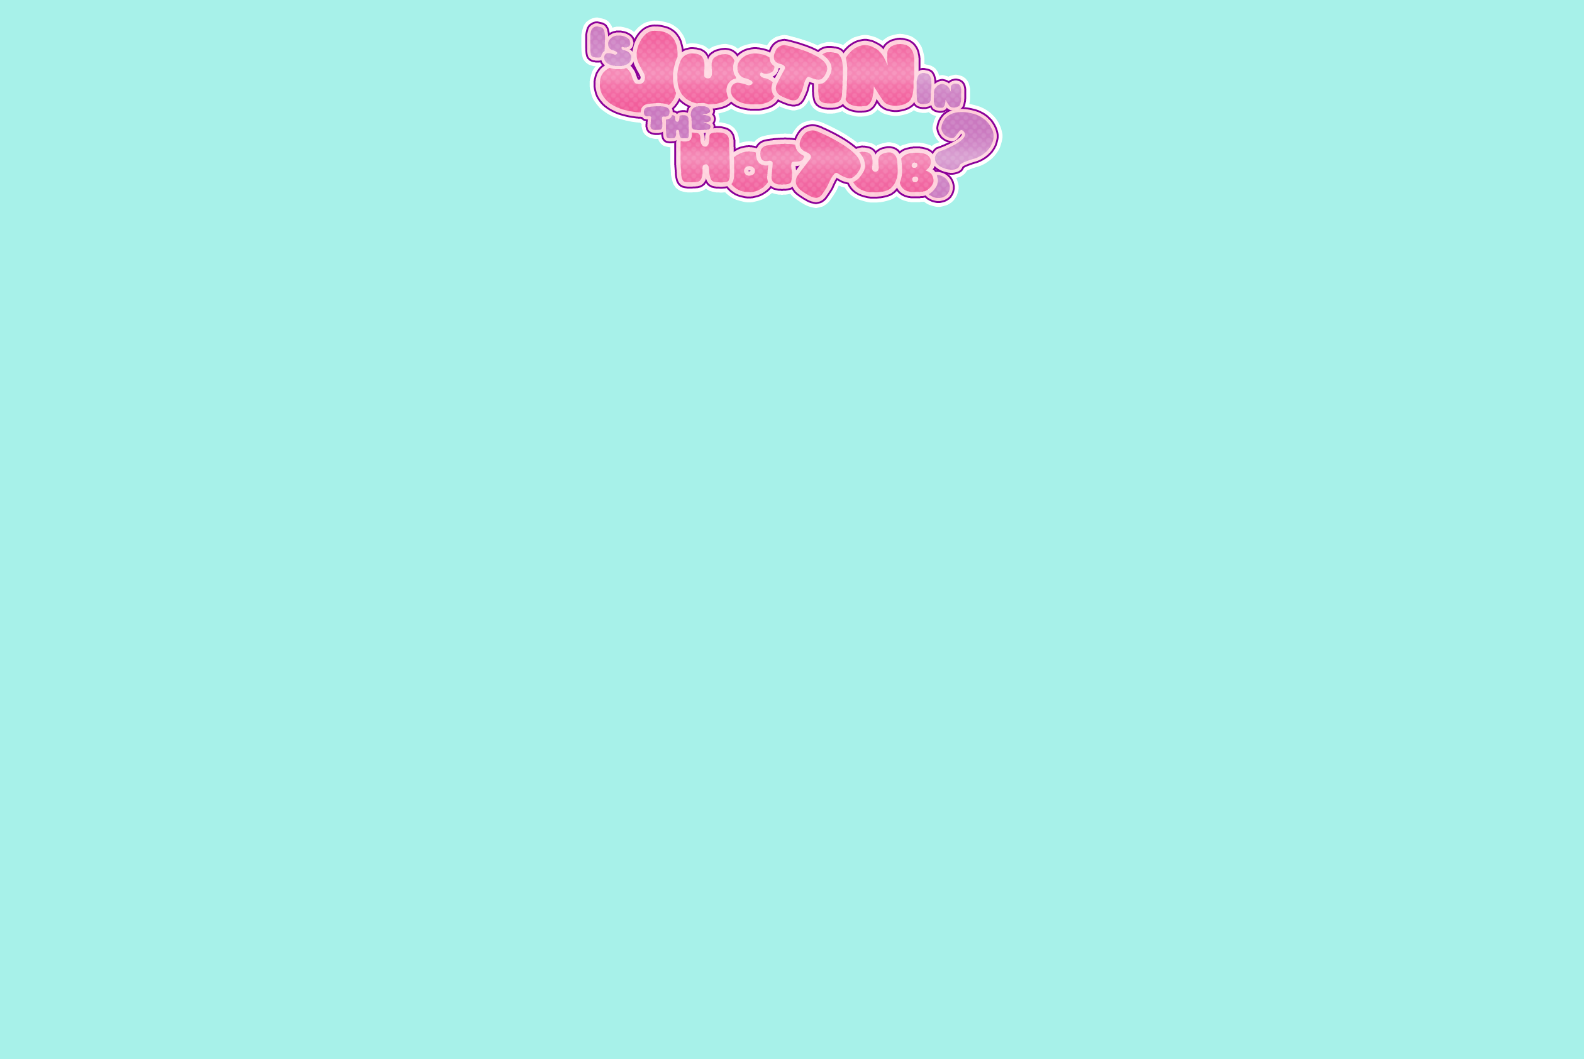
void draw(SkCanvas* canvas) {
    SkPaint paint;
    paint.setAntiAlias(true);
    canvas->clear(0xFFA7F1E9);
    canvas->drawImageRect(SkImages::DeferredFromEncodedData(SkData::MakeFromFileName("img1.png")), SkRect::MakeXYWH(581, 17, 422, 191), SkSamplingOptions());
}
